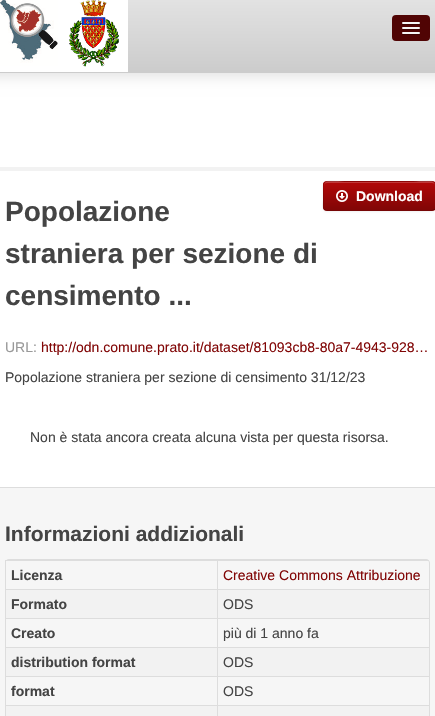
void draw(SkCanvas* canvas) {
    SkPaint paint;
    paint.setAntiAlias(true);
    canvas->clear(0xFFFFFFFF);
    paint.setColor(0xFFDDDDDD);
    paint.setMaskFilter(SkMaskFilter::MakeBlur(kNormal_SkBlurStyle, 7.5f));
    canvas->drawRect(SkRect::MakeXYWH(-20, 2, 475, 73), paint);
    paint.setMaskFilter(nullptr);
    {
        const SkColor colors[] = {0xFFE2E2E2, 0xFFCCCCCC};
        const float stops[] = {0, 1};
        const SkPoint ends[] = {{218, 0}, {218, 72}};
        paint.setShader(SkGradientShader::MakeLinear(ends, colors, stops, 2, SkTileMode::kClamp));
        paint.setAlpha(255);
    }
    canvas->drawRect(SkRect::MakeXYWH(128, 0, 307, 72), paint);
    paint.setShader(nullptr);
    paint.setColor(0xFFCCCCCC);
    canvas->drawRect(SkRect::MakeXYWH(0, 72, 435, 1), paint);
    canvas->drawImageRect(SkImages::DeferredFromEncodedData(SkData::MakeFromFileName("img1.png")), SkRect::MakeXYWH(0, 0, 128, 72), SkSamplingOptions());
    paint.setColor(0xFF500404);
    canvas->drawRoundRect(SkRect::MakeXYWH(392, 15, 38, 26), 4, 4, paint);
    paint.setColor(0xFF3C0303);
    canvas->drawPath(SkPathBuilder().moveTo(402, 23.5f).cubicTo(401, 25.5f, 405.5f, 25, 405.5f, 25).lineTo(416.5f, 25).cubicTo(416.5f, 25, 421, 25.5f, 420, 23.5f).cubicTo(419, 24.5f, 412.5f, 24, 411, 24).cubicTo(409.5f, 24, 403, 24.5f, 402, 23.5f).close().detach(), paint);
    paint.setColor(0xFFF5F5F5);
    canvas->drawRoundRect(SkRect::MakeXYWH(402, 22, 18, 2), 1, 1, paint);
    paint.setColor(0xFF3C0303);
    canvas->drawPath(SkPathBuilder().moveTo(402, 28.5f).cubicTo(401, 30.5f, 405.5f, 30, 405.5f, 30).lineTo(416.5f, 30).cubicTo(416.5f, 30, 421, 30.5f, 420, 28.5f).cubicTo(419, 29.5f, 412.5f, 29, 411, 29).cubicTo(409.5f, 29, 403, 29.5f, 402, 28.5f).close().detach(), paint);
    paint.setColor(0xFFF5F5F5);
    canvas->drawRoundRect(SkRect::MakeXYWH(402, 27, 18, 2), 1, 1, paint);
    paint.setColor(0xFF3C0303);
    canvas->drawPath(SkPathBuilder().moveTo(402, 33.5f).cubicTo(401, 35.5f, 405.5f, 35, 405.5f, 35).lineTo(416.5f, 35).cubicTo(416.5f, 35, 421, 35.5f, 420, 33.5f).cubicTo(419, 34.5f, 412.5f, 34, 411, 34).cubicTo(409.5f, 34, 403, 34.5f, 402, 33.5f).close().detach(), paint);
    paint.setColor(0xFFF5F5F5);
    canvas->drawRoundRect(SkRect::MakeXYWH(402, 32, 18, 2), 1, 1, paint);
    paint.setStyle(SkPaint::kStroke_Style);
    paint.setStrokeWidth(4);
    paint.setColor(0xFFF2F2F2);
    canvas->drawRect(SkRect::MakeXYWH(-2, 169, 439, 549), paint);
    paint.setStyle(SkPaint::kFill_Style);
    paint.setColor(0xFFDDDDDD);
    canvas->drawRect(SkRect::MakeXYWH(0, 487, 435, 1), paint);
    paint.setColor(0x0D000000);
    paint.setMaskFilter(SkMaskFilter::MakeBlur(kNormal_SkBlurStyle, 1));
    canvas->drawRoundRect(SkRect::MakeXYWH(323, 182, 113, 30), 4, 4, paint);
    paint.setMaskFilter(nullptr);
    paint.setColor(0xFF9E0707);
    canvas->drawRoundRect(SkRect::MakeXYWH(323, 181, 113, 30), 4, 4, paint);
    canvas->save();
    canvas->clipPath(SkPathBuilder().moveTo(327, 181).lineTo(432, 181).cubicTo(434, 181, 436, 183, 436, 185).lineTo(436, 207).cubicTo(436, 209, 434, 211, 432, 211).lineTo(327, 211).cubicTo(325, 211, 323, 209, 323, 207).lineTo(323, 185).cubicTo(323, 183, 325, 181, 327, 181).close().detach(), true);
    {
        const SkColor colors[] = {0xFFB20808, 0xFF810606};
        const float stops[] = {0, 1};
        const SkPoint ends[] = {{380, 182}, {380, 210}};
        paint.setShader(SkGradientShader::MakeLinear(ends, colors, stops, 2, SkTileMode::kClamp));
        paint.setAlpha(255);
    }
    canvas->drawRect(SkRect::MakeXYWH(323, 182, 112, 28), paint);
    canvas->restore();
    paint.setShader(nullptr);
    paint.setColor(0x33FFFFFF);
    canvas->drawPath(SkPathBuilder().moveTo(327, 183).lineTo(432, 183).cubicTo(434, 183, 435, 184, 435, 186).cubicTo(435, 177, 417, 182, 414, 182).lineTo(344, 182).cubicTo(342, 182, 324, 177, 324, 186).cubicTo(324, 184, 325, 183, 327, 183).close().detach(), paint);
    paint.setStyle(SkPaint::kStroke_Style);
    paint.setStrokeWidth(1);
    paint.setColor(0x40000000);
    canvas->drawPath(SkPathBuilder().moveTo(434.5f, 209.5f).lineTo(432, 210.5f).lineTo(326.5f, 210.5f).lineTo(324.5f, 209.5f).detach(), paint);
    paint.setColor(0x1A000000);
    canvas->drawPath(SkPathBuilder().moveTo(324.5f, 209.5f).cubicTo(322, 207, 323.5f, 202.5f, 323.5f, 199.5f).cubicTo(323.5f, 177.5f, 320, 181.5f, 344.5f, 181.5f).lineTo(414.5f, 181.5f).cubicTo(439, 181.5f, 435.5f, 177.5f, 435.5f, 199.5f).cubicTo(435.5f, 202.5f, 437, 207, 434.5f, 209.5f).detach(), paint);
    canvas->drawImageRect(SkImages::DeferredFromEncodedData(SkData::MakeFromFileName("img2.png")), SkRect::MakeXYWH(336, 190, 12, 12), SkSamplingOptions());
    SkFont font1(fontMgr->matchFamilyStyle("Liberation Sans", SkFontStyle::Bold()), 14);
    font1.setSubpixel(true);
    paint.setStyle(SkPaint::kFill_Style);
    paint.setColor(0xFFFFFFFF);
    canvas->drawString("Download", 356, 201, font1, paint);
    SkFont font2(fontMgr->matchFamilyStyle("Liberation Sans", SkFontStyle::Bold()), 28);
    font2.setSubpixel(true);
    paint.setColor(0xFF444444);
    canvas->drawString("Popolazione", 5, 221, font2, paint);
    canvas->drawString("straniera per sezione di", 5, 263, font2, paint);
    canvas->drawString("censimento ...", 5, 305, font2, paint);
    SkFont font3(fontMgr->matchFamilyStyle("Liberation Sans", SkFontStyle::Normal()), 14);
    font3.setSubpixel(true);
    paint.setColor(0xFF999999);
    canvas->drawString("URL:", 5, 352, font3, paint);
    paint.setColor(0xFF810606);
    canvas->drawString("http://odn.comune.prato.it/dataset/81093cb8-80a7-4943-928…", 41, 352, font3, paint);
    paint.setColor(0xFF444444);
    canvas->drawString("Popolazione straniera per sezione di censimento 31/12/23", 5, 382, font3, paint);
    canvas->drawString("Non è stata ancora creata alcuna vista per questa risorsa.", 30, 442, font3, paint);
    paint.setColor(0xFFF6F6F6);
    canvas->drawRect(SkRect::MakeXYWH(0, 488, 435, 228), paint);
    SkFont font4(fontMgr->matchFamilyStyle("Liberation Sans", SkFontStyle::Bold()), 21);
    font4.setSubpixel(true);
    paint.setColor(0xFF444444);
    canvas->drawString("Informazioni addizionali", 5, 541, font4, paint);
    paint.setColor(0xFFDDDDDD);
    canvas->drawPath(SkPathBuilder(SkPathFillType::kEvenOdd).moveTo(9, 559).lineTo(426, 559).cubicTo(428, 559, 430, 561, 430, 563).lineTo(430, 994).cubicTo(430, 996, 428, 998, 426, 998).lineTo(9, 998).cubicTo(7, 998, 5, 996, 5, 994).lineTo(5, 563).cubicTo(5, 561, 7, 559, 9, 559).close().moveTo(9, 560).lineTo(426, 560).cubicTo(428, 560, 429, 561, 429, 563).lineTo(429, 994).cubicTo(429, 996, 428, 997, 426, 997).lineTo(9, 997).cubicTo(7, 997, 5, 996, 5, 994).lineTo(5, 563).cubicTo(5, 561, 7, 560, 9, 560).close().detach(), paint);
    canvas->drawRect(SkRect::MakeXYWH(5, 560, 424, 1), paint);
    canvas->drawRect(SkRect::MakeXYWH(5, 560, 1, 29), paint);
    paint.setColor(0xFF444444);
    canvas->drawString("Licenza", 11, 580, font1, paint);
    paint.setColor(0xFFDDDDDD);
    canvas->drawRect(SkRect::MakeXYWH(217, 560, 1, 29), paint);
    paint.setColor(0xFF810606);
    canvas->drawString("Creative Commons Attribuzione", 223, 580, font3, paint);
    paint.setColor(0xFFF2F2F2);
    canvas->drawRect(SkRect::MakeXYWH(6, 590, 211, 28), paint);
    paint.setColor(0xFFDDDDDD);
    canvas->drawRect(SkRect::MakeXYWH(5, 589, 424, 1), paint);
    canvas->drawRect(SkRect::MakeXYWH(5, 589, 1, 29), paint);
    paint.setColor(0xFF444444);
    canvas->drawString("Formato", 11, 609, font1, paint);
    paint.setColor(0xFFF2F2F2);
    canvas->drawRect(SkRect::MakeXYWH(218, 590, 211, 28), paint);
    paint.setColor(0xFFDDDDDD);
    canvas->drawRect(SkRect::MakeXYWH(217, 589, 1, 29), paint);
    paint.setColor(0xFF444444);
    canvas->drawString("ODS", 223, 609, font3, paint);
    paint.setColor(0xFFDDDDDD);
    canvas->drawRect(SkRect::MakeXYWH(5, 618, 424, 1), paint);
    canvas->drawRect(SkRect::MakeXYWH(5, 618, 1, 29), paint);
    paint.setColor(0xFF444444);
    canvas->drawString("Creato", 11, 638, font1, paint);
    paint.setColor(0xFFDDDDDD);
    canvas->drawRect(SkRect::MakeXYWH(217, 618, 1, 29), paint);
    paint.setColor(0xFF444444);
    canvas->drawString("più di 1 anno fa", 223, 638, font3, paint);
    paint.setColor(0xFFF2F2F2);
    canvas->drawRect(SkRect::MakeXYWH(6, 648, 211, 28), paint);
    paint.setColor(0xFFDDDDDD);
    canvas->drawRect(SkRect::MakeXYWH(5, 647, 424, 1), paint);
    canvas->drawRect(SkRect::MakeXYWH(5, 647, 1, 29), paint);
    paint.setColor(0xFF444444);
    canvas->drawString("distribution format", 11, 667, font1, paint);
    paint.setColor(0xFFF2F2F2);
    canvas->drawRect(SkRect::MakeXYWH(218, 648, 211, 28), paint);
    paint.setColor(0xFFDDDDDD);
    canvas->drawRect(SkRect::MakeXYWH(217, 647, 1, 29), paint);
    paint.setColor(0xFF444444);
    canvas->drawString("ODS", 223, 667, font3, paint);
    paint.setColor(0xFFDDDDDD);
    canvas->drawRect(SkRect::MakeXYWH(5, 676, 424, 1), paint);
    canvas->drawRect(SkRect::MakeXYWH(5, 676, 1, 29), paint);
    paint.setColor(0xFF444444);
    canvas->drawString("format", 11, 696, font1, paint);
    paint.setColor(0xFFDDDDDD);
    canvas->drawRect(SkRect::MakeXYWH(217, 676, 1, 29), paint);
    paint.setColor(0xFF444444);
    canvas->drawString("ODS", 223, 696, font3, paint);
    paint.setColor(0xFFF2F2F2);
    canvas->drawRect(SkRect::MakeXYWH(6, 706, 211, 10), paint);
    paint.setColor(0xFFDDDDDD);
    canvas->drawRect(SkRect::MakeXYWH(5, 705, 424, 1), paint);
    canvas->drawRect(SkRect::MakeXYWH(5, 705, 1, 11), paint);
    paint.setColor(0xFFF2F2F2);
    canvas->drawRect(SkRect::MakeXYWH(218, 706, 211, 10), paint);
    paint.setColor(0xFFDDDDDD);
    canvas->drawRect(SkRect::MakeXYWH(217, 705, 1, 11), paint);
}
